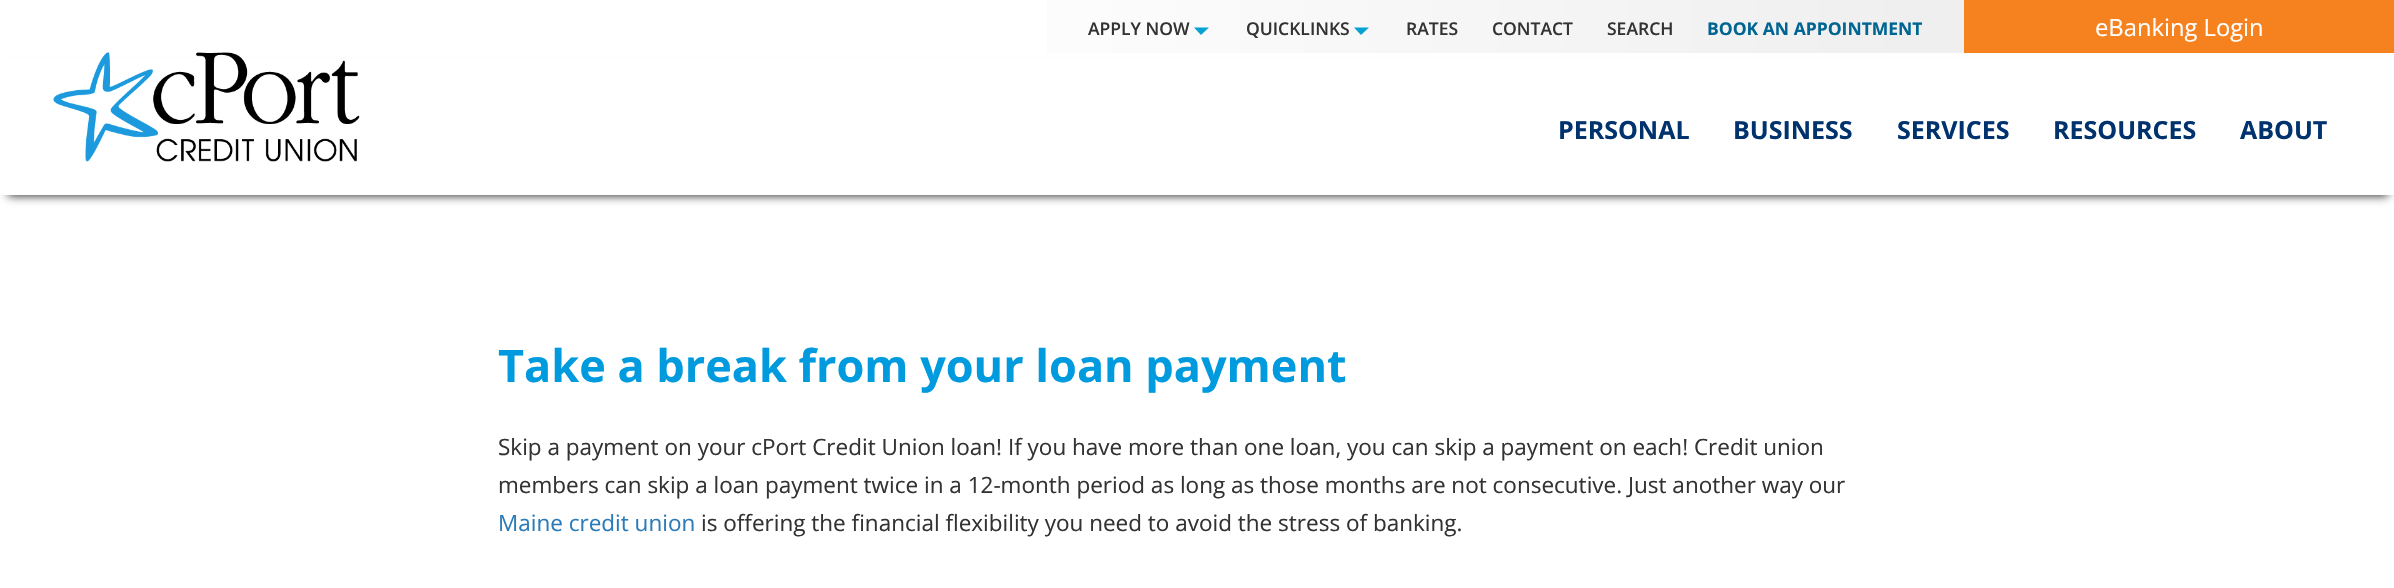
void draw(SkCanvas* canvas) {
    SkPaint paint;
    paint.setAntiAlias(true);
    canvas->clear(0xFFFFFFFF);
    {
        const SkColor colors[] = {0xFFFFFFFF, 0xFFEFEFEF};
        const float stops[] = {0.37f, 0.8f};
        const SkPoint ends[] = {{0, 26}, {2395, 26}};
        paint.setShader(SkGradientShader::MakeLinear(ends, colors, stops, 2, SkTileMode::kClamp));
        paint.setAlpha(255);
    }
    canvas->drawRect(SkRect::MakeXYWH(1047, 0, 917, 53), paint);
    SkFont font1(fontMgr->matchFamilyStyle("Open Sans", SkFontStyle(600, SkFontStyle::kNormal_Width, SkFontStyle::kUpright_Slant)), 17.5f);
    font1.setSubpixel(true);
    paint.setShader(nullptr);
    paint.setColor(0xFF333333);
    canvas->drawString("APPLY NOW", 1088, 35, font1, paint);
    paint.setColor(0xFF05A1D4);
    canvas->drawPath(SkPathBuilder().moveTo(1194, 27.5f).lineTo(1209, 27.5f).lineTo(1201, 35).close().detach(), paint);
    paint.setColor(0xFF333333);
    canvas->drawString("QUICKLINKS", 1246, 35, font1, paint);
    paint.setColor(0xFF05A1D4);
    canvas->drawPath(SkPathBuilder().moveTo(1354, 27.5f).lineTo(1369, 27.5f).lineTo(1361, 35).close().detach(), paint);
    paint.setColor(0xFF333333);
    canvas->drawString("RATES", 1406, 35, font1, paint);
    canvas->drawString("CONTACT", 1492, 35, font1, paint);
    canvas->drawString("SEARCH", 1607, 35, font1, paint);
    SkFont font2(fontMgr->matchFamilyStyle("Open Sans", SkFontStyle::Bold()), 17.5f);
    font2.setSubpixel(true);
    paint.setColor(0xFF006592);
    canvas->drawString("BOOK AN APPOINTMENT", 1707, 35, font2, paint);
    paint.setColor(0xFFF5821F);
    canvas->drawRect(SkRect::MakeXYWH(1964, 0, 430, 53), paint);
    SkFont font3(fontMgr->matchFamilyStyle("Open Sans", SkFontStyle::Normal()), 23.75f);
    font3.setSubpixel(true);
    paint.setColor(0xFFFFFFFF);
    canvas->drawString("eBanking Login", 2095, 36, font3, paint);
    paint.setColor(0xCC000000);
    paint.setMaskFilter(SkMaskFilter::MakeBlur(kNormal_SkBlurStyle, 4.5f));
    canvas->drawRect(SkRect::MakeXYWH(8, 69, 2380, 127), paint);
    paint.setMaskFilter(nullptr);
    paint.setColor(0xFFFFFFFF);
    canvas->drawRect(SkRect::MakeXYWH(0, 59, 2394, 136), paint);
    canvas->drawImageRect(SkImages::DeferredFromEncodedData(SkData::MakeFromFileName("img1.png")), SkRect::MakeXYWH(53, 52, 307, 110), SkSamplingOptions());
    SkFont font4(fontMgr->matchFamilyStyle("Open Sans", SkFontStyle::Bold()), 25);
    font4.setSubpixel(true);
    paint.setColor(0xFF00336E);
    canvas->drawString("PERSONAL", 1558, 139, font4, paint);
    canvas->drawString("BUSINESS", 1733, 139, font4, paint);
    canvas->drawString("SERVICES", 1897, 139, font4, paint);
    canvas->drawString("RESOURCES", 2053, 139, font4, paint);
    canvas->drawString("ABOUT", 2240, 139, font4, paint);
    SkFont font5(fontMgr->matchFamilyStyle("Open Sans", SkFontStyle::Bold()), 45);
    font5.setSubpixel(true);
    paint.setColor(0xFF009ADE);
    canvas->drawString("Take a break from your loan payment", 498, 382, font5, paint);
    SkFont font6(fontMgr->matchFamilyStyle("Open Sans", SkFontStyle::Normal()), 22.5f);
    font6.setSubpixel(true);
    paint.setColor(0xFF333333);
    canvas->drawString("Skip a payment on your cPort Credit Union loan! If you have more than one loan, you can skip a payment on each! Credit union", 498, 455, font6, paint);
    canvas->drawString("members can skip a loan payment twice in a 12-month period as long as those months are not consecutive. Just another way our", 498, 493, font6, paint);
    paint.setColor(0xFF2B7BB9);
    canvas->drawString("Maine credit union", 498, 531, font6, paint);
    paint.setColor(0xFF333333);
    canvas->drawString("is offering the financial flexibility you need to avoid the stress of banking.", 701, 531, font6, paint);
}
